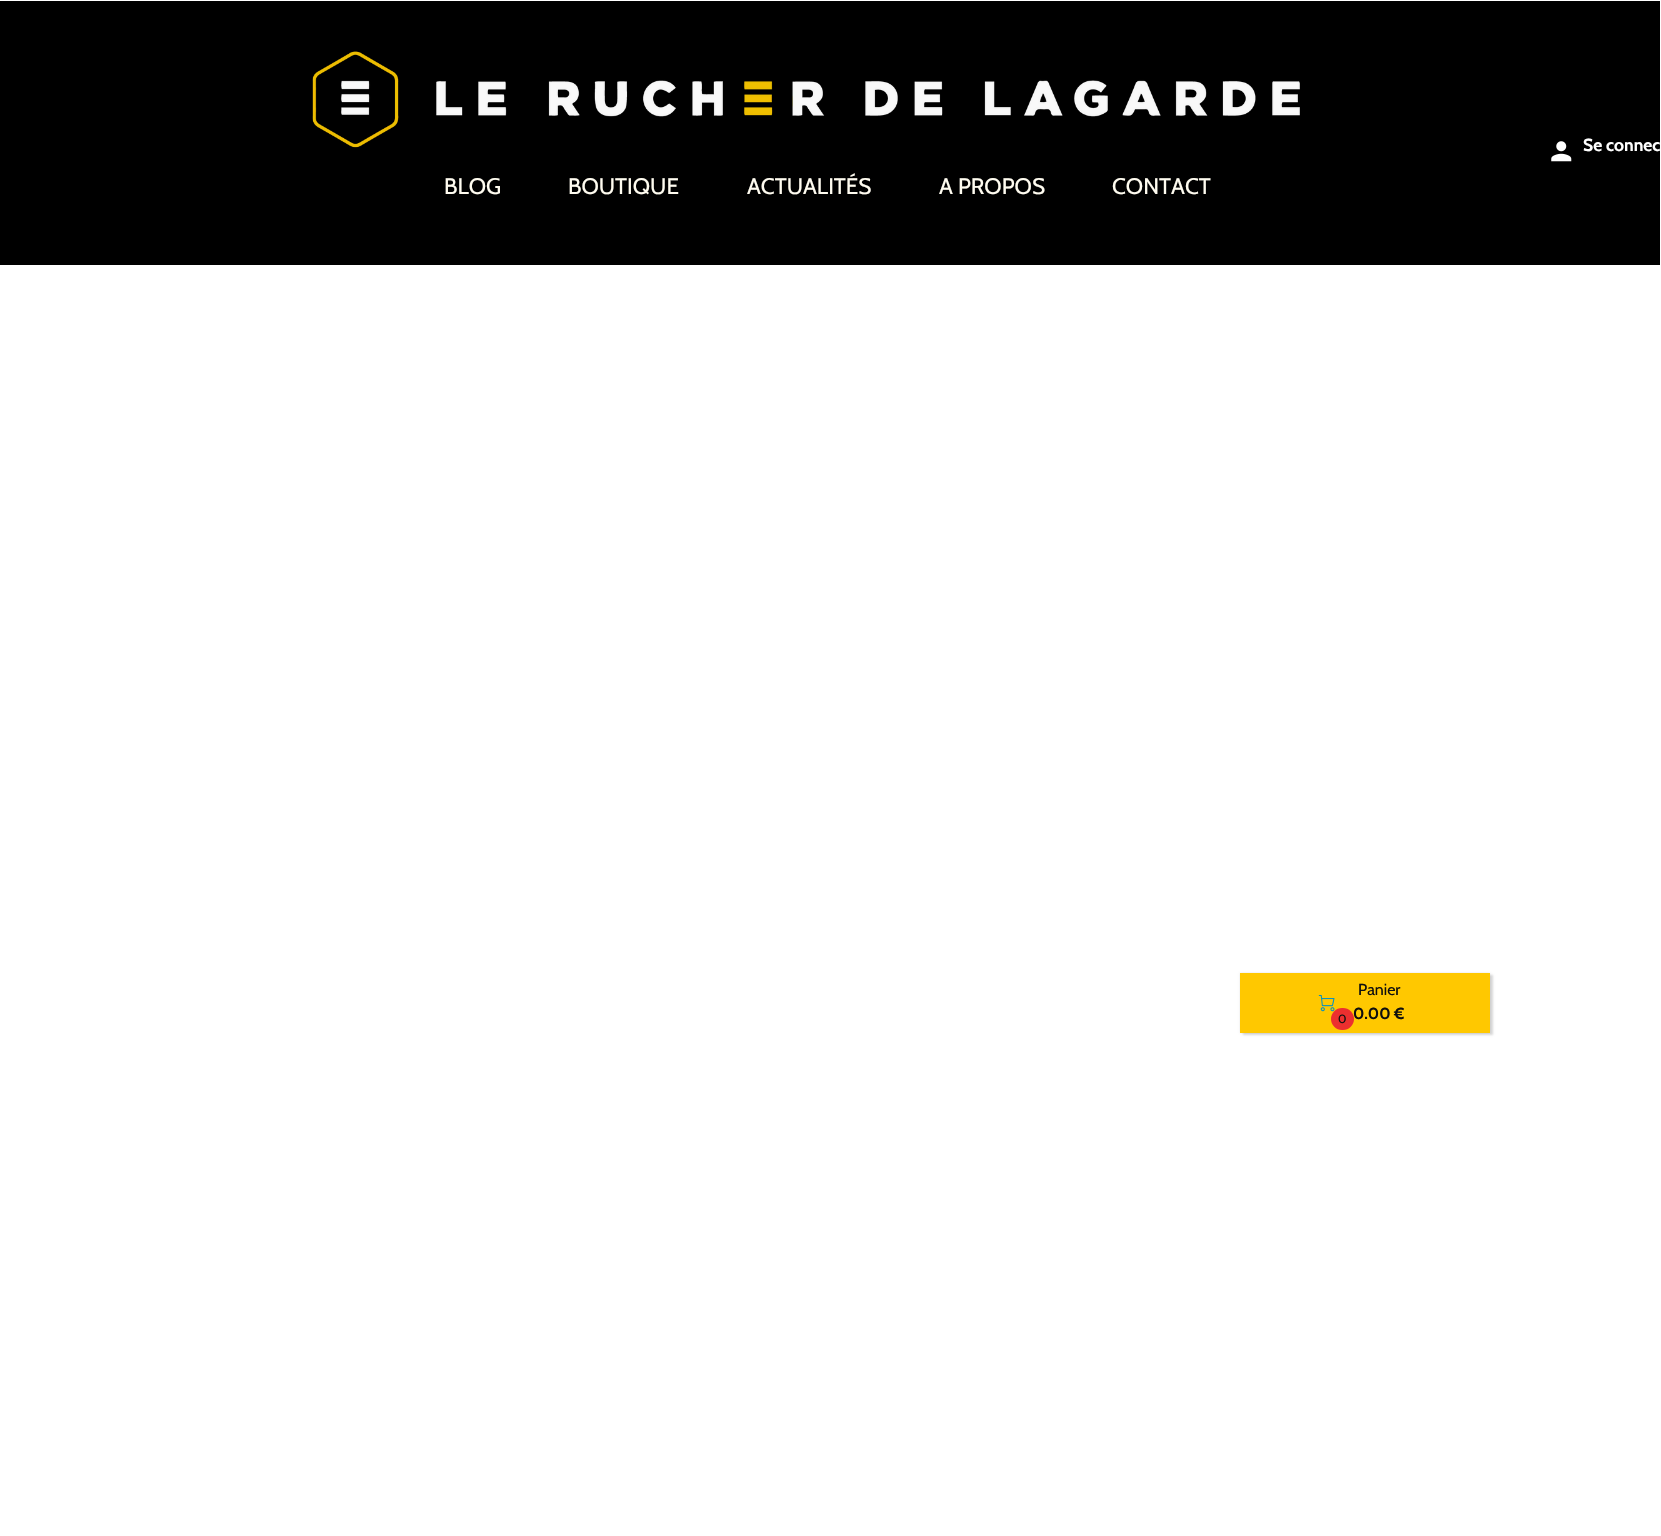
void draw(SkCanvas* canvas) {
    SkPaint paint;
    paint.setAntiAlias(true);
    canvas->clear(0xFFFFFFFF);
    paint.setColor(0xFF000000);
    canvas->drawRect(SkRect::MakeXYWH(0, 1, 1660, 264), paint);
    canvas->drawImageRect(SkImages::DeferredFromEncodedData(SkData::MakeFromFileName("img1.png")), SkRect::MakeXYWH(312, 51, 988, 97), SkSamplingOptions());
    canvas->drawImageRect(SkImages::DeferredFromEncodedData(SkData::MakeFromFileName("img2.png")), SkRect::MakeXYWH(1551, 141, 21, 21), SkSamplingOptions());
    SkFont font1(fontMgr->matchFamilyStyle("Cabin", SkFontStyle::Bold()), 17.5f);
    font1.setSubpixel(true);
    paint.setColor(0xFFFFFFFF);
    canvas->drawString("Se connec", 1583, 151, font1, paint);
    SkFont font2(fontMgr->matchFamilyStyle("Cabin", SkFontStyle::Normal()), 22.5f);
    font2.setSubpixel(true);
    paint.setColor(0xFFFFFCF0);
    canvas->drawString("BLOG", 444, 194, font2, paint);
    canvas->drawString("BOUTIQUE", 568, 194, font2, paint);
    canvas->drawString("ACTUALITÉS", 747, 194, font2, paint);
    canvas->drawString("A PROPOS", 939, 194, font2, paint);
    canvas->drawString("CONTACT", 1112, 194, font2, paint);
    paint.setColor(0x26000000);
    paint.setMaskFilter(SkMaskFilter::MakeBlur(kNormal_SkBlurStyle, 1));
    canvas->drawRect(SkRect::MakeXYWH(1243, 975, 250, 60), paint);
    paint.setMaskFilter(nullptr);
    paint.setColor(0x1A000000);
    paint.setMaskFilter(SkMaskFilter::MakeBlur(kNormal_SkBlurStyle, 1));
    canvas->drawRect(SkRect::MakeXYWH(1240, 973, 250, 60), paint);
    paint.setMaskFilter(nullptr);
    paint.setColor(0xFFFFC800);
    canvas->drawRect(SkRect::MakeXYWH(1240, 973, 250, 60), paint);
    canvas->drawImageRect(SkImages::DeferredFromEncodedData(SkData::MakeFromFileName("img3.png")), SkRect::MakeXYWH(1318, 995, 17, 17), SkSamplingOptions());
    paint.setColor(0xFFEC2F2F);
    canvas->drawRoundRect(SkRect::MakeXYWH(1331, 1008, 23, 22), 11, 11, paint);
    SkFont font3(fontMgr->matchFamilyStyle("Cabin", SkFontStyle::Normal()), 12);
    font3.setSubpixel(true);
    paint.setColor(0xFF0F0F0F);
    canvas->drawString("0", 1338, 1023, font3, paint);
    SkFont font4(fontMgr->matchFamilyStyle("Cabin", SkFontStyle::Normal()), 16);
    font4.setSubpixel(true);
    canvas->drawString("Panier", 1358, 995, font4, paint);
    SkFont font5(fontMgr->matchFamilyStyle("Cabin", SkFontStyle::Bold()), 16);
    font5.setSubpixel(true);
    canvas->drawString("0.00 €", 1353, 1019, font5, paint);
}
